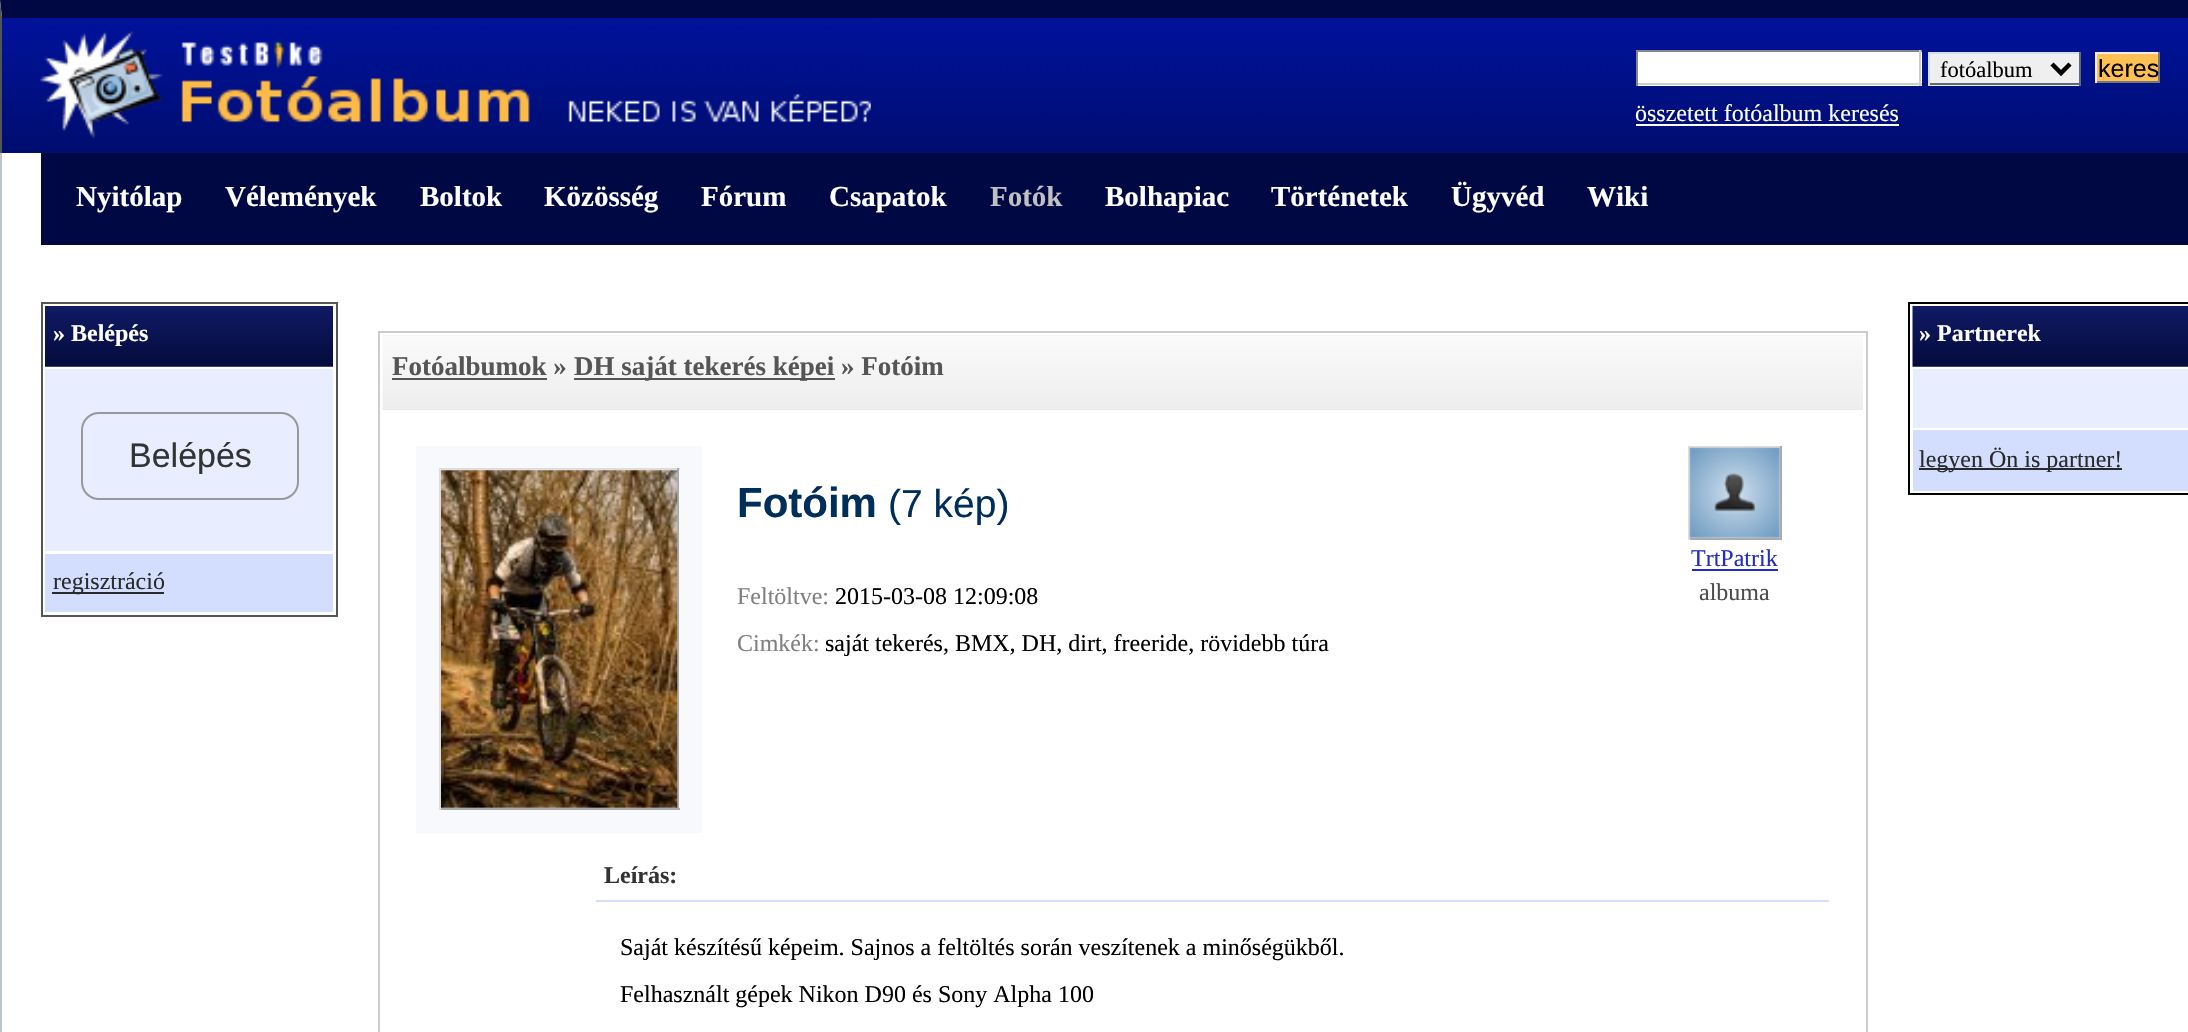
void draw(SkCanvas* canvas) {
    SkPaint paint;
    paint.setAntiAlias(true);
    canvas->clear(0xFFFFFFFF);
    canvas->drawImageRect(SkImages::DeferredFromEncodedData(SkData::MakeFromFileName("img1.png")), SkRect::MakeXYWH(0, 0, 2, 18), SkSamplingOptions());
    canvas->drawImageRect(SkImages::DeferredFromEncodedData(SkData::MakeFromFileName("img2.png")), SkRect::MakeXYWH(2, 18, 2186, 135), SkSamplingOptions());
    paint.setColor(0xFF000844);
    canvas->drawPath(SkPathBuilder().moveTo(0, 0).lineTo(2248, 0).lineTo(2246, 18).lineTo(2, 18).close().detach(), paint);
    paint.setColor(0xFF555555);
    canvas->drawPath(SkPathBuilder().moveTo(0, 153).lineTo(0, 0).lineTo(2, 18).lineTo(2, 153).close().detach(), paint);
    canvas->drawImageRect(SkImages::DeferredFromEncodedData(SkData::MakeFromFileName("img3.png")), SkRect::MakeXYWH(40, 31, 831, 107), SkSamplingOptions());
    paint.setColor(0xFFFFFFFF);
    canvas->drawRect(SkRect::MakeXYWH(1638, 52, 284, 34), paint);
    paint.setColor(0xFF888888);
    canvas->drawRect(SkRect::MakeXYWH(1636, 50, 286, 2), paint);
    paint.setColor(0xFFCCCCCC);
    canvas->drawRect(SkRect::MakeXYWH(1919, 50, 2, 36), paint);
    canvas->drawRect(SkRect::MakeXYWH(1636, 83, 286, 2), paint);
    paint.setColor(0xFF888888);
    canvas->drawRect(SkRect::MakeXYWH(1636, 50, 2, 36), paint);
    paint.setColor(0xFFEFEFEF);
    canvas->drawRect(SkRect::MakeXYWH(1930, 54, 149, 32), paint);
    paint.setColor(0xFFD3DEFF);
    canvas->drawRect(SkRect::MakeXYWH(1928, 52, 153, 2), paint);
    paint.setColor(0xFF5F6A79);
    canvas->drawRect(SkRect::MakeXYWH(2079, 52, 2, 34), paint);
    canvas->drawRect(SkRect::MakeXYWH(1928, 83, 153, 2), paint);
    paint.setColor(0xFFD3DEFF);
    canvas->drawRect(SkRect::MakeXYWH(1928, 52, 2, 34), paint);
    paint.setStyle(SkPaint::kStroke_Style);
    paint.setStrokeWidth(4.5f);
    paint.setColor(0xFF000000);
    canvas->drawPath(SkPathBuilder().moveTo(2052, 64).lineTo(2061, 73).lineTo(2070, 64).detach(), paint);
    SkFont font1(fontMgr->matchFamilyStyle("Liberation Serif", SkFontStyle::Normal()), 22.5f);
    font1.setSubpixel(true);
    paint.setStyle(SkPaint::kFill_Style);
    canvas->drawString("fotóalbum", 1940, 77, font1, paint);
    paint.setColor(0xFFFEC054);
    canvas->drawRect(SkRect::MakeXYWH(2097, 54, 61, 27), paint);
    paint.setColor(0xFFEEEEEE);
    canvas->drawRect(SkRect::MakeXYWH(2095, 52, 65, 2), paint);
    paint.setColor(0xFF777777);
    canvas->drawRect(SkRect::MakeXYWH(2158, 52, 2, 31), paint);
    canvas->drawRect(SkRect::MakeXYWH(2095, 81, 65, 2), paint);
    paint.setColor(0xFFEEEEEE);
    canvas->drawRect(SkRect::MakeXYWH(2095, 52, 2, 31), paint);
    SkFont font2(fontMgr->matchFamilyStyle("Liberation Sans", SkFontStyle::Normal()), 25);
    font2.setSubpixel(true);
    paint.setColor(0xFF000000);
    canvas->drawString("keres", 2098, 77, font2, paint);
    SkFont font3(fontMgr->matchFamilyStyle("Liberation Serif", SkFontStyle::Normal()), 24);
    font3.setSubpixel(true);
    paint.setColor(0xFFFFFFFF);
    canvas->drawString("összetett fotóalbum keresés", 1635, 121, font3, paint);
    canvas->drawRect(SkRect::MakeXYWH(1636, 124, 263, 2), paint);
    paint.setColor(0xFFBEC4CD);
    canvas->drawRect(SkRect::MakeXYWH(0, 153, 2, 879), paint);
    paint.setColor(0xFF000844);
    canvas->drawRect(SkRect::MakeXYWH(41, 153, 2147, 92), paint);
    SkFont font4(fontMgr->matchFamilyStyle("Liberation Serif", SkFontStyle::Bold()), 29);
    font4.setSubpixel(true);
    paint.setColor(0xFFFFFFFF);
    canvas->drawString("Nyitólap", 76, 206, font4, paint);
    canvas->drawString("Vélemények", 225, 206, font4, paint);
    canvas->drawString("Boltok", 420, 206, font4, paint);
    canvas->drawString("Közösség", 544, 206, font4, paint);
    canvas->drawString("Fórum", 701, 206, font4, paint);
    canvas->drawString("Csapatok", 829, 206, font4, paint);
    paint.setColor(0xFFC0C0C0);
    canvas->drawString("Fotók", 990, 206, font4, paint);
    paint.setColor(0xFFFFFFFF);
    canvas->drawString("Bolhapiac", 1105, 206, font4, paint);
    canvas->drawString("Történetek", 1271, 206, font4, paint);
    canvas->drawString("Ügyvéd", 1451, 206, font4, paint);
    canvas->drawString("Wiki", 1587, 206, font4, paint);
    paint.setStyle(SkPaint::kStroke_Style);
    paint.setStrokeWidth(2);
    paint.setColor(0xFF555555);
    canvas->drawRect(SkRect::MakeXYWH(42, 303, 295, 313), paint);
    canvas->drawImageRect(SkImages::DeferredFromEncodedData(SkData::MakeFromFileName("img4.png")), SkRect::MakeXYWH(45, 306, 288, 61), SkSamplingOptions());
    SkFont font5(fontMgr->matchFamilyStyle("Liberation Serif", SkFontStyle::Bold()), 24);
    font5.setSubpixel(true);
    paint.setStyle(SkPaint::kFill_Style);
    paint.setColor(0xFFFFFFFF);
    canvas->drawString("» Belépés", 53, 341, font5, paint);
    paint.setColor(0xFFE8EDFF);
    canvas->drawRect(SkRect::MakeXYWH(45, 369, 288, 182), paint);
    paint.setStyle(SkPaint::kStroke_Style);
    paint.setColor(0xFF999999);
    canvas->drawRoundRect(SkRect::MakeXYWH(82, 413, 216, 86), 17, 17, paint);
    SkFont font6(fontMgr->matchFamilyStyle("Liberation Sans", SkFontStyle::Normal()), 34);
    font6.setSubpixel(true);
    paint.setStyle(SkPaint::kFill_Style);
    paint.setColor(0xFF333333);
    canvas->drawString("Belépés", 129, 467, font6, paint);
    paint.setColor(0xFFD3DEFF);
    canvas->drawRect(SkRect::MakeXYWH(45, 554, 288, 58), paint);
    paint.setColor(0xFF2A2A2A);
    canvas->drawRect(SkRect::MakeXYWH(52, 592, 112, 2), paint);
    canvas->drawString("regisztráció", 53, 589, font3, paint);
    paint.setStyle(SkPaint::kStroke_Style);
    paint.setColor(0xFFCCCCCC);
    canvas->drawRect(SkRect::MakeXYWH(379, 332, 1488, 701), paint);
    paint.setStyle(SkPaint::kFill_Style);
    paint.setColor(0xFFE7E7E7);
    canvas->drawRect(SkRect::MakeXYWH(383, 335, 1480, 75), paint);
    canvas->drawImageRect(SkImages::DeferredFromEncodedData(SkData::MakeFromFileName("img5.png")), SkRect::MakeXYWH(382, 335, 1481, 75), SkSamplingOptions());
    SkFont font7(fontMgr->matchFamilyStyle("Liberation Serif", SkFontStyle::Bold()), 27);
    font7.setSubpixel(true);
    paint.setColor(0xFF555555);
    canvas->drawString("Fotóalbumok »", 392, 375, font7, paint);
    canvas->drawRect(SkRect::MakeXYWH(392, 378, 155, 2), paint);
    canvas->drawRect(SkRect::MakeXYWH(574, 378, 261, 2), paint);
    canvas->drawString("DH saját tekerés képei » Fotóim", 574, 375, font7, paint);
    paint.setColor(0xFFF7F9FD);
    canvas->drawRect(SkRect::MakeXYWH(416, 446, 286, 387), paint);
    paint.setColor(0xFFDDDDDD);
    canvas->drawRect(SkRect::MakeXYWH(439, 468, 241, 2), paint);
    paint.setColor(0xFFAAAAAA);
    canvas->drawRect(SkRect::MakeXYWH(677, 468, 2, 342), paint);
    canvas->drawRect(SkRect::MakeXYWH(439, 808, 241, 2), paint);
    paint.setColor(0xFFDDDDDD);
    canvas->drawRect(SkRect::MakeXYWH(439, 468, 2, 342), paint);
    canvas->drawImageRect(SkImages::DeferredFromEncodedData(SkData::MakeFromFileName("img6.png")), SkRect::MakeXYWH(441, 470, 237, 338), SkSamplingOptions());
    SkFont font8(fontMgr->matchFamilyStyle("Liberation Sans", SkFontStyle::Bold()), 42);
    font8.setSubpixel(true);
    paint.setColor(0xFF002E5B);
    canvas->drawString("Fotóim", 737, 517, font8, paint);
    SkFont font9(fontMgr->matchFamilyStyle("Liberation Sans", SkFontStyle::Normal()), 39);
    font9.setSubpixel(true);
    canvas->drawString("(7 kép)", 888, 517, font9, paint);
    paint.setColor(0xFF808080);
    canvas->drawString("Feltöltve:", 737, 604, font3, paint);
    paint.setColor(0xFF000000);
    canvas->drawString("2015-03-08 12:09:08", 835, 604, font3, paint);
    paint.setColor(0xFF808080);
    canvas->drawString("Cimkék:", 737, 651, font3, paint);
    paint.setColor(0xFF000000);
    canvas->drawString("saját tekerés, BMX, DH, dirt, freeride, rövidebb túra", 825, 651, font3, paint);
    paint.setColor(0xFFDDDDDD);
    canvas->drawRect(SkRect::MakeXYWH(1688, 446, 94, 2), paint);
    paint.setColor(0xFFAAAAAA);
    canvas->drawRect(SkRect::MakeXYWH(1780, 446, 2, 94), paint);
    canvas->drawRect(SkRect::MakeXYWH(1688, 538, 94, 2), paint);
    paint.setColor(0xFFDDDDDD);
    canvas->drawRect(SkRect::MakeXYWH(1688, 446, 2, 94), paint);
    canvas->drawImageRect(SkImages::DeferredFromEncodedData(SkData::MakeFromFileName("img7.png")), SkRect::MakeXYWH(1689, 447, 91, 91), SkSamplingOptions());
    paint.setColor(0xFF212DCB);
    canvas->drawString("TrtPatrik", 1691, 566, font3, paint);
    canvas->drawRect(SkRect::MakeXYWH(1692, 569, 86, 2), paint);
    paint.setColor(0xFF4C4C4C);
    canvas->drawString("albuma", 1699, 600, font3, paint);
    paint.setColor(0xFFD3DEFF);
    canvas->drawRect(SkRect::MakeXYWH(596, 900, 1233, 2), paint);
    paint.setColor(0xFF333333);
    canvas->drawString("Leírás:", 604, 883, font5, paint);
    paint.setColor(0xFF000000);
    canvas->drawString("Saját készítésű képeim. Sajnos a feltöltés során veszítenek a minőségükből.", 620, 955, font3, paint);
    canvas->drawString("Felhasznált gépek Nikon D90 és Sony Alpha 100", 620, 1002, font3, paint);
    paint.setStyle(SkPaint::kStroke_Style);
    canvas->drawRect(SkRect::MakeXYWH(1909, 303, 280, 191), paint);
    canvas->drawImageRect(SkImages::DeferredFromEncodedData(SkData::MakeFromFileName("img8.png")), SkRect::MakeXYWH(1912, 306, 276, 61), SkSamplingOptions());
    paint.setStyle(SkPaint::kFill_Style);
    paint.setColor(0xFFFFFFFF);
    canvas->drawString("» Partnerek", 1919, 341, font5, paint);
    paint.setColor(0xFFE8EDFF);
    canvas->drawRect(SkRect::MakeXYWH(1913, 369, 275, 59), paint);
    paint.setColor(0xFFD3DEFF);
    canvas->drawRect(SkRect::MakeXYWH(1913, 430, 275, 61), paint);
    paint.setColor(0xFF2A2A2A);
    canvas->drawRect(SkRect::MakeXYWH(1919, 468, 203, 2), paint);
    canvas->drawString("legyen Ön is partner!", 1919, 467, font3, paint);
}
